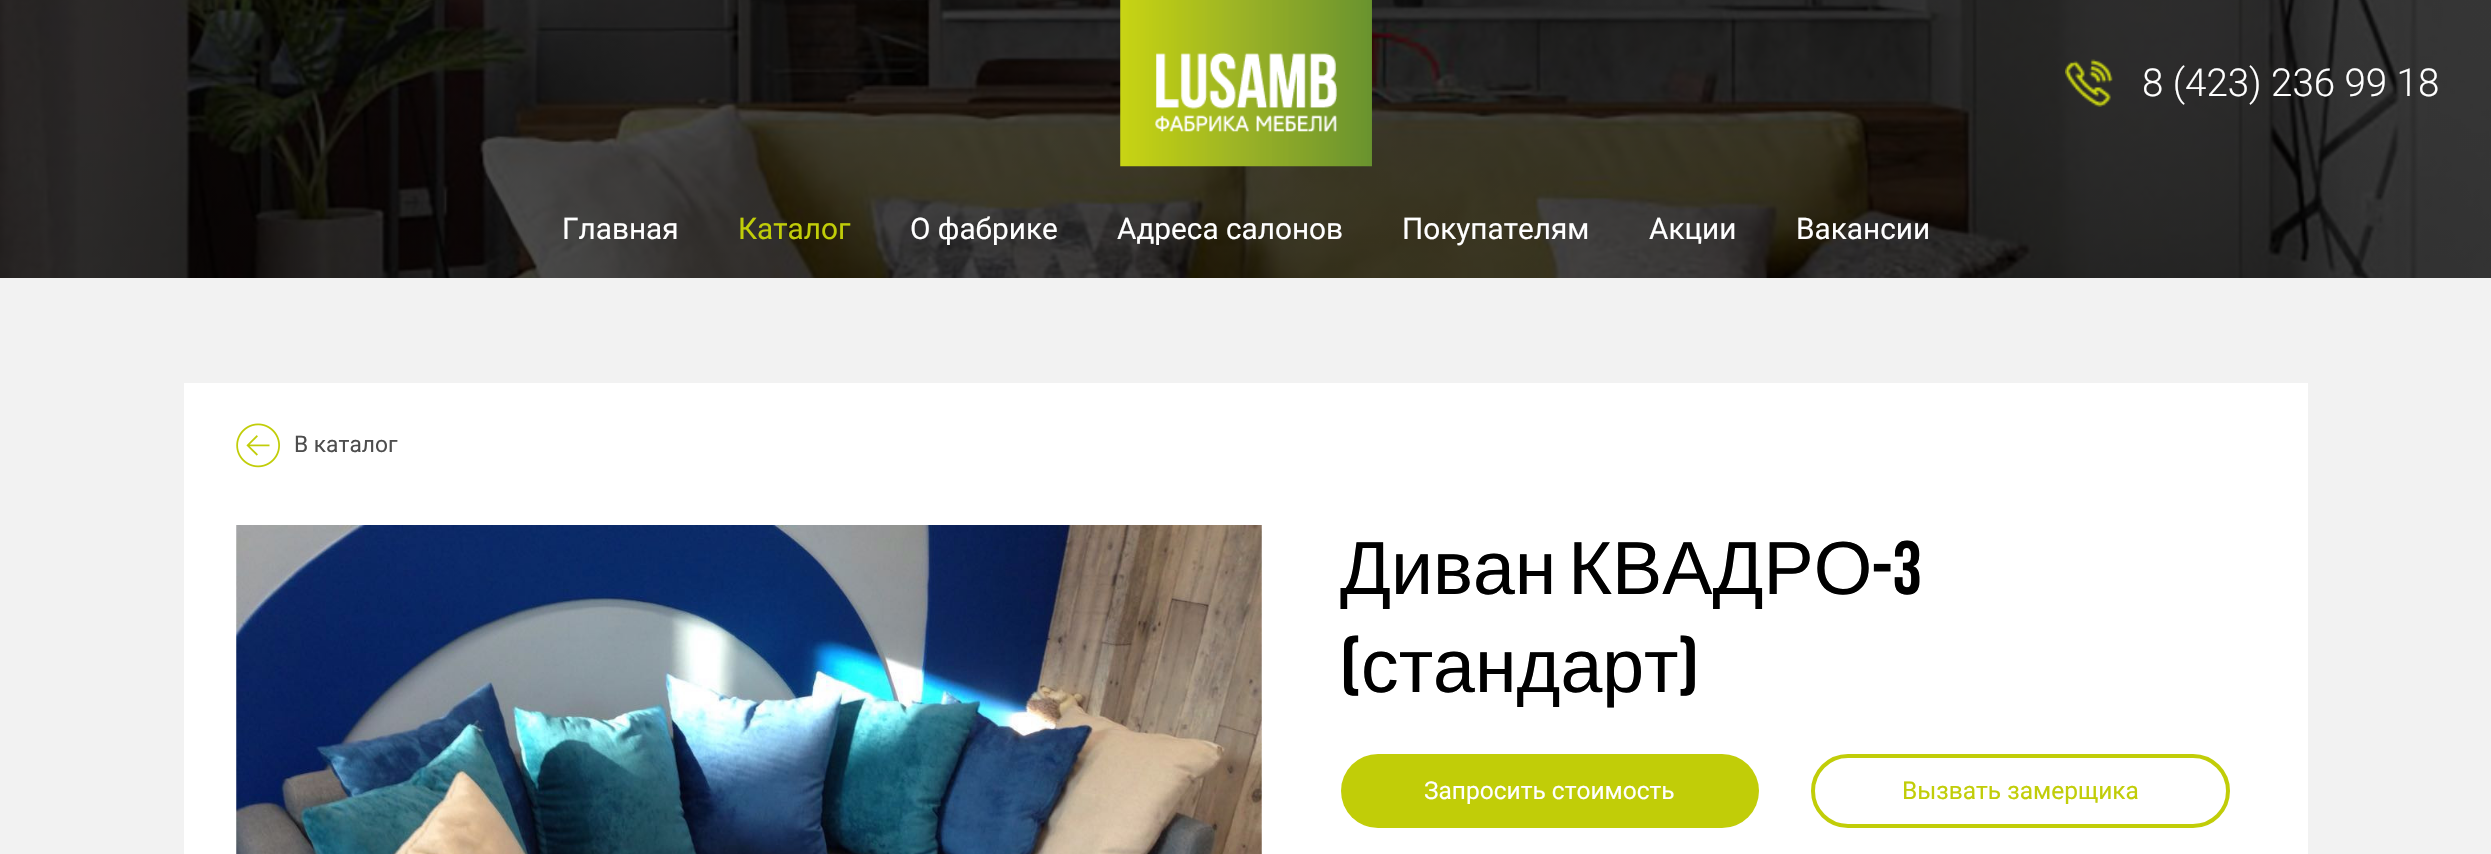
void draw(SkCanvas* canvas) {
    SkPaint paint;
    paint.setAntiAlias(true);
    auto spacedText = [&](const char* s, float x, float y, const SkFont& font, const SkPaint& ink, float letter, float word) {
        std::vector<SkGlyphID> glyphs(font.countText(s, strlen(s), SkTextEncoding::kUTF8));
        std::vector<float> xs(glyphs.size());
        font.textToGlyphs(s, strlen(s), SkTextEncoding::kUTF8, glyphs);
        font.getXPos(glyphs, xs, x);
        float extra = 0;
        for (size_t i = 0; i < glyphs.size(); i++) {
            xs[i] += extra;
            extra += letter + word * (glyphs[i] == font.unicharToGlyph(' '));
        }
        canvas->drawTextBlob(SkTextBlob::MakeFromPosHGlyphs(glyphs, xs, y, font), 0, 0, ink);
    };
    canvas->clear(0xFFFFFFFF);
    canvas->drawImageRect(SkImages::DeferredFromEncodedData(SkData::MakeFromFileName("img1.png")), SkRect::MakeXYWH(0, 0, 2491, 278), SkSamplingOptions());
    canvas->drawImageRect(SkImages::DeferredFromEncodedData(SkData::MakeFromFileName("img2.png")), SkRect::MakeXYWH(1120, 0, 252, 167), SkSamplingOptions());
    canvas->drawImageRect(SkImages::DeferredFromEncodedData(SkData::MakeFromFileName("img3.png")), SkRect::MakeXYWH(1155, 52, 182, 80), SkSamplingOptions());
    canvas->drawImageRect(SkImages::DeferredFromEncodedData(SkData::MakeFromFileName("img4.png")), SkRect::MakeXYWH(2065, 59, 48, 48), SkSamplingOptions());
    SkFont font1(fontMgr->matchFamilyStyle("Roboto", SkFontStyle(300, SkFontStyle::kNormal_Width, SkFontStyle::kUpright_Slant)), 38.5f);
    font1.setSubpixel(true);
    paint.setColor(0xFFFFFFFF);
    canvas->drawString("8 (423) 236 99 18", 2142, 96, font1, paint);
    SkFont font2(fontMgr->matchFamilyStyle("Roboto", SkFontStyle::Normal()), 29.75f);
    font2.setSubpixel(true);
    canvas->drawString("Главная", 562, 239, font2, paint);
    paint.setColor(0xFFC1CD08);
    canvas->drawString("Каталог", 738, 239, font2, paint);
    paint.setColor(0xFFFFFFFF);
    canvas->drawString("О фабрике", 910, 239, font2, paint);
    canvas->drawString("Адреса салонов", 1117, 239, font2, paint);
    canvas->drawString("Покупателям", 1402, 239, font2, paint);
    canvas->drawString("Акции", 1649, 239, font2, paint);
    canvas->drawString("Вакансии", 1796, 239, font2, paint);
    paint.setColor(0xFFF2F2F2);
    canvas->drawRect(SkRect::MakeXYWH(0, 278, 2491, 576), paint);
    paint.setColor(0xFFFFFFFF);
    canvas->drawRect(SkRect::MakeXYWH(184, 383, 2124, 471), paint);
    canvas->drawImageRect(SkImages::DeferredFromEncodedData(SkData::MakeFromFileName("img5.png")), SkRect::MakeXYWH(236, 423, 44, 45), SkSamplingOptions());
    SkFont font3(fontMgr->matchFamilyStyle("Roboto", SkFontStyle::Normal()), 22.75f);
    font3.setSubpixel(true);
    paint.setColor(0xFF4D4D4D);
    canvas->drawString("В каталог", 294, 452, font3, paint);
    canvas->drawImageRect(SkImages::DeferredFromEncodedData(SkData::MakeFromFileName("img6.png")), SkRect::MakeXYWH(236, 525, 1026, 329), SkSamplingOptions());
    SkFont font4(fontMgr->matchFamilyStyle("Liberation Sans", SkFontStyle::Normal()), 75.25f);
    font4.setSubpixel(true);
    paint.setColor(0xFF000000);
    spacedText("Диван КВАДРО", 1340, 594, font4, paint, 0, -9);
    SkFont font5(fontMgr->matchFamilyStyle("Bebas Neue", SkFontStyle::Normal()), 75.25f);
    font5.setSubpixel(true);
    canvas->drawString("-3", 1872, 594, font5, paint);
    canvas->drawString("(", 1340, 692, font5, paint);
    canvas->drawString("стандарт", 1361, 692, font4, paint);
    canvas->drawString(")", 1678, 692, font5, paint);
    paint.setColor(0xFFC1CD08);
    canvas->drawRoundRect(SkRect::MakeXYWH(1341, 754, 418, 74), 37, 37, paint);
    SkFont font6(fontMgr->matchFamilyStyle("Roboto", SkFontStyle::Normal()), 24.5f);
    font6.setSubpixel(true);
    paint.setColor(0xFFFFFFFF);
    canvas->drawString("Запросить стоимость", 1424, 799, font6, paint);
    paint.setStyle(SkPaint::kStroke_Style);
    paint.setStrokeWidth(4);
    paint.setColor(0xFFC1CD08);
    canvas->drawRoundRect(SkRect::MakeXYWH(1813, 756, 415, 70), 35, 35, paint);
    paint.setStyle(SkPaint::kFill_Style);
    canvas->drawString("Вызвать замерщика", 1902, 799, font6, paint);
}
